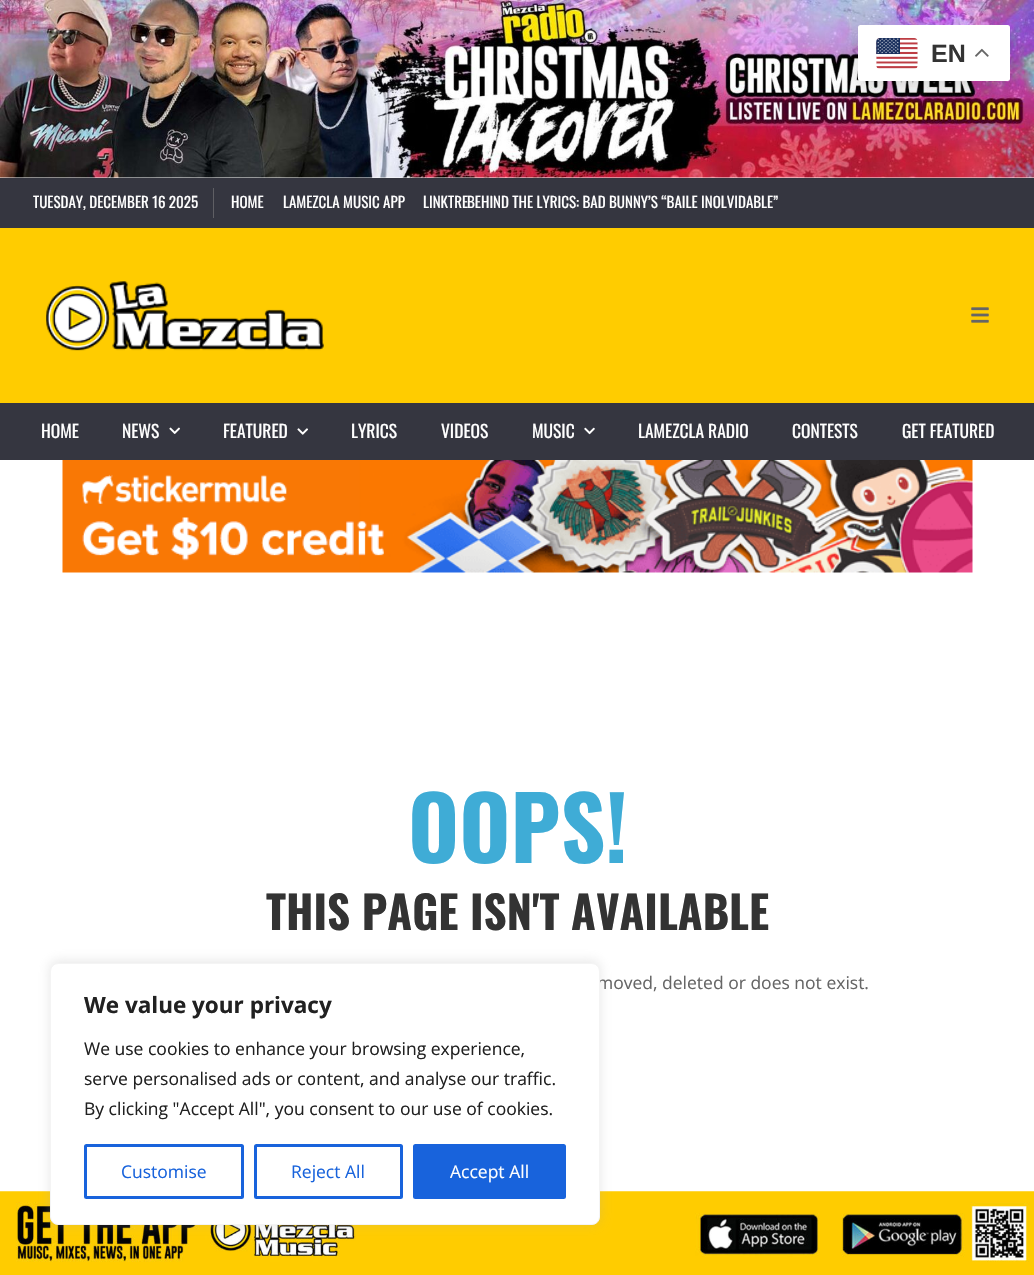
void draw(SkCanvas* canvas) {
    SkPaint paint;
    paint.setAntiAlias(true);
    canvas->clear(0xFFFFFFFF);
    canvas->drawImageRect(SkImages::DeferredFromEncodedData(SkData::MakeFromFileName("img3.png")), SkRect::MakeXYWH(0, 0, 1034, 178), SkSamplingOptions());
    paint.setColor(0x26000000);
    paint.setMaskFilter(SkMaskFilter::MakeBlur(kNormal_SkBlurStyle, 9.5f));
    canvas->drawRoundRect(SkRect::MakeXYWH(858, 31, 152, 57), 2.5f, 2.5f, paint);
    paint.setMaskFilter(nullptr);
    paint.setColor(0xFFFFFFFF);
    canvas->drawRoundRect(SkRect::MakeXYWH(858, 25, 152, 56), 2.5f, 2.5f, paint);
    canvas->drawImageRect(SkImages::DeferredFromEncodedData(SkData::MakeFromFileName("img1.png")), SkRect::MakeXYWH(876, 38, 42, 31), SkSamplingOptions());
    SkFont font1(fontMgr->matchFamilyStyle("Liberation Sans", SkFontStyle::Bold()), 25);
    font1.setSubpixel(true);
    paint.setColor(0xFF333333);
    canvas->drawString("EN", 931, 62, font1, paint);
    canvas->drawImageRect(SkImages::DeferredFromEncodedData(SkData::MakeFromFileName("img2.png")), SkRect::MakeXYWH(975, 48, 14, 9), SkSamplingOptions());
    paint.setColor(0xFF353640);
    canvas->drawRect(SkRect::MakeXYWH(0, 178, 1034, 50), paint);
    SkFont font2(fontMgr->matchFamilyStyle("Oswald", SkFontStyle::Normal()), 15);
    font2.setSubpixel(true);
    paint.setColor(0xFFFFFFFF);
    canvas->drawString("TUESDAY, DECEMBER 16 2025", 33, 208, font2, paint);
    paint.setColor(0xFF5F5F64);
    canvas->drawRect(SkRect::MakeXYWH(213, 188, 1, 30), paint);
    paint.setColor(0xFFFFFFFF);
    canvas->drawString("HOME", 231, 208, font2, paint);
    canvas->drawString("LAMEZCLA MUSIC APP", 283, 208, font2, paint);
    canvas->drawString("LINKTRE", 423, 208, font2, paint);
    canvas->drawString("BEHIND THE LYRICS: BAD BUNNY’S “BAILE INOLVIDABLE”", 467, 208, font2, paint);
    paint.setColor(0xFFFFCC00);
    canvas->drawRect(SkRect::MakeXYWH(0, 228, 1034, 175), paint);
    canvas->drawImageRect(SkImages::DeferredFromEncodedData(SkData::MakeFromFileName("img4.png")), SkRect::MakeXYWH(46, 281, 278, 70), SkSamplingOptions());
    canvas->drawImageRect(SkImages::DeferredFromEncodedData(SkData::MakeFromFileName("img5.png")), SkRect::MakeXYWH(971, 307, 18, 16), SkSamplingOptions());
    paint.setColor(0xFF353640);
    canvas->drawRect(SkRect::MakeXYWH(0, 403, 1034, 57), paint);
    SkFont font3(fontMgr->matchFamilyStyle("Oswald", SkFontStyle::Normal()), 17.5f);
    font3.setSubpixel(true);
    paint.setColor(0xFFFFFFFF);
    canvas->drawString("HOME", 41, 438, font3, paint);
    canvas->drawString("NEWS", 122, 438, font3, paint);
    canvas->drawImageRect(SkImages::DeferredFromEncodedData(SkData::MakeFromFileName("img6.png")), SkRect::MakeXYWH(169, 427, 11, 7), SkSamplingOptions());
    canvas->drawString("FEATURED", 223, 438, font3, paint);
    canvas->drawImageRect(SkImages::DeferredFromEncodedData(SkData::MakeFromFileName("img7.png")), SkRect::MakeXYWH(297, 428, 11, 7), SkSamplingOptions());
    canvas->drawString("LYRICS", 351, 438, font3, paint);
    canvas->drawString("VIDEOS", 441, 438, font3, paint);
    canvas->drawString("MUSIC", 532, 438, font3, paint);
    canvas->drawImageRect(SkImages::DeferredFromEncodedData(SkData::MakeFromFileName("img8.png")), SkRect::MakeXYWH(584, 427, 11, 8), SkSamplingOptions());
    canvas->drawString("LAMEZCLA RADIO", 638, 438, font3, paint);
    canvas->drawString("CONTESTS", 792, 438, font3, paint);
    canvas->drawString("GET FEATURED", 902, 438, font3, paint);
    canvas->drawImageRect(SkImages::DeferredFromEncodedData(SkData::MakeFromFileName("img9.png")), SkRect::MakeXYWH(62, 460, 911, 113), SkSamplingOptions());
    SkFont font4(fontMgr->matchFamilyStyle("Oswald", SkFontStyle::Bold()), 87.5f);
    font4.setSubpixel(true);
    paint.setColor(0xFF3FACD6);
    canvas->drawString("OOPS!", 408, 863, font4, paint);
    SkFont font5(fontMgr->matchFamilyStyle("Oswald", SkFontStyle::Bold()), 45);
    font5.setSubpixel(true);
    paint.setColor(0xFF333333);
    canvas->drawString("THIS PAGE ISN'T AVAILABLE", 266, 930, font5, paint);
    SkFont font6(fontMgr->matchFamilyStyle("Open Sans", SkFontStyle::Normal()), 17.5f);
    font6.setSubpixel(true);
    paint.setColor(0xFF666666);
    canvas->drawString("moved, deleted or does not exist.", 597, 989, font6, paint);
    canvas->drawImageRect(SkImages::DeferredFromEncodedData(SkData::MakeFromFileName("img10.png")), SkRect::MakeXYWH(0, 1191, 1034, 84), SkSamplingOptions());
    paint.setColor(0x4DACABAB);
    paint.setMaskFilter(SkMaskFilter::MakeBlur(kNormal_SkBlurStyle, 6));
    canvas->drawRoundRect(SkRect::MakeXYWH(50, 961, 550, 263), 8, 8, paint);
    paint.setMaskFilter(nullptr);
    paint.setColor(0xFFFFFFFF);
    canvas->drawRoundRect(SkRect::MakeXYWH(50.5f, 963.5f, 549, 261), 7.5f, 7.5f, paint);
    paint.setStyle(SkPaint::kStroke_Style);
    paint.setStrokeWidth(1);
    paint.setColor(0xFFF4F4F4);
    canvas->drawRoundRect(SkRect::MakeXYWH(50.5f, 963.5f, 549, 261), 7.5f, 7.5f, paint);
    SkFont font7(fontMgr->matchFamilyStyle("Open Sans", SkFontStyle::Bold()), 22.5f);
    font7.setSubpixel(true);
    paint.setStyle(SkPaint::kFill_Style);
    paint.setColor(0xFF212121);
    canvas->drawString("We value your privacy", 84, 1013, font7, paint);
    canvas->drawString("We use cookies to enhance your browsing experience,", 84, 1055, font6, paint);
    canvas->drawString("serve personalised ads or content, and analyse our traffic.", 84, 1085, font6, paint);
    canvas->drawString("By clicking \"Accept All\", you consent to our use of cookies.", 84, 1115, font6, paint);
    paint.setStyle(SkPaint::kStroke_Style);
    paint.setStrokeWidth(3);
    paint.setColor(0xFF1863DC);
    canvas->drawRoundRect(SkRect::MakeXYWH(85.5f, 1145.5f, 157, 52), 1, 1, paint);
    paint.setStyle(SkPaint::kFill_Style);
    canvas->drawString("Customise", 121, 1178, font6, paint);
    paint.setStyle(SkPaint::kStroke_Style);
    canvas->drawRoundRect(SkRect::MakeXYWH(255.5f, 1145.5f, 146, 52), 1, 1, paint);
    paint.setStyle(SkPaint::kFill_Style);
    canvas->drawString("Reject All", 291, 1178, font6, paint);
    canvas->drawRoundRect(SkRect::MakeXYWH(414.5f, 1145.5f, 150, 52), 1, 1, paint);
    paint.setStyle(SkPaint::kStroke_Style);
    canvas->drawRoundRect(SkRect::MakeXYWH(414.5f, 1145.5f, 150, 52), 1, 1, paint);
    paint.setStyle(SkPaint::kFill_Style);
    paint.setColor(0xFFFFFFFF);
    canvas->drawString("Accept All", 450, 1178, font6, paint);
}
